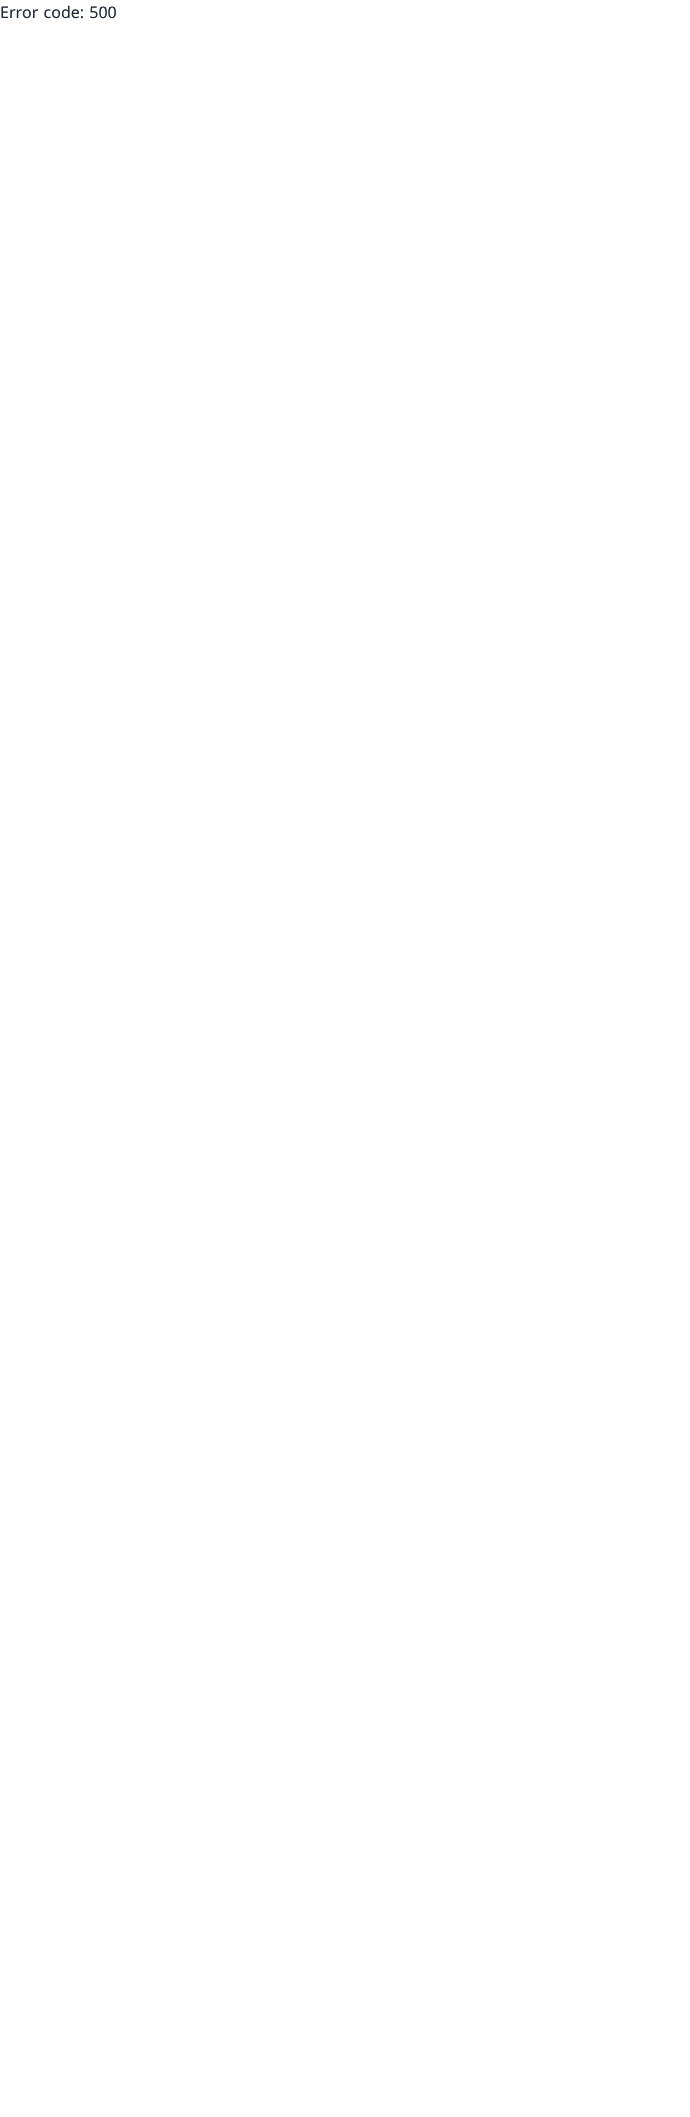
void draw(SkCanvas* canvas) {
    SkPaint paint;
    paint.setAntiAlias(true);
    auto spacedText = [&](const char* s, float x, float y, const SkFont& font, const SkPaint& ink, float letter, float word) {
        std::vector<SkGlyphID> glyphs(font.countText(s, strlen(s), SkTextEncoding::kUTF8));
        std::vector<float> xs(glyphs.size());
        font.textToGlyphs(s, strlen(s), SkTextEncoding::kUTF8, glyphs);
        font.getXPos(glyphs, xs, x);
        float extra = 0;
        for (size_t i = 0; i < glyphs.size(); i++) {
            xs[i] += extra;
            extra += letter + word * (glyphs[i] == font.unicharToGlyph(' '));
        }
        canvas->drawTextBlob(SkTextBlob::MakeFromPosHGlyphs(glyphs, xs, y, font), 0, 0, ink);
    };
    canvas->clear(0xFFFFFFFF);
    SkFont font1(fontMgr->matchFamilyStyle("Noto Sans", SkFontStyle::Normal()), 16);
    font1.setSubpixel(true);
    paint.setColor(0xFF1F2937);
    spacedText("Error code: 500", 0, 18, font1, paint, 0, 1);
}
